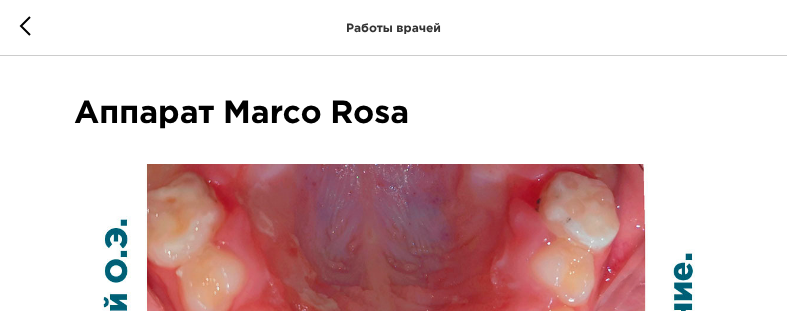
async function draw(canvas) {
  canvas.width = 787;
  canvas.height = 311;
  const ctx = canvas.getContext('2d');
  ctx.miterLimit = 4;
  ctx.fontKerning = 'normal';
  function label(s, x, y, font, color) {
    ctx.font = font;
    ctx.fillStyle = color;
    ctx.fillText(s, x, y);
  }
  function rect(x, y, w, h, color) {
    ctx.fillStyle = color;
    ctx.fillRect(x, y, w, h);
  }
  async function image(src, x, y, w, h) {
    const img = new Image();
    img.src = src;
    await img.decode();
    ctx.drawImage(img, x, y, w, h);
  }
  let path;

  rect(0, 0, 787, 311, '#fff');
  rect(0, 55, 787, 1, '#ccc');
  path = new Path2D('M30 35L21 26L30 17');
  ctx.strokeStyle = '#000';
  ctx.lineWidth = 2;
  ctx.stroke(path);
  label('Работы врачей', 346, 32, 'bold 12px Gotham', '#333');
  ctx.wordSpacing = '-1px';
  label('Аппарат Marco Rosa', 74, 123, 'bold 32px Gotham', '#000');
  await image('assets/img1.png', 102, 164, 593, 147);
}

draw(document.querySelector('canvas'));
